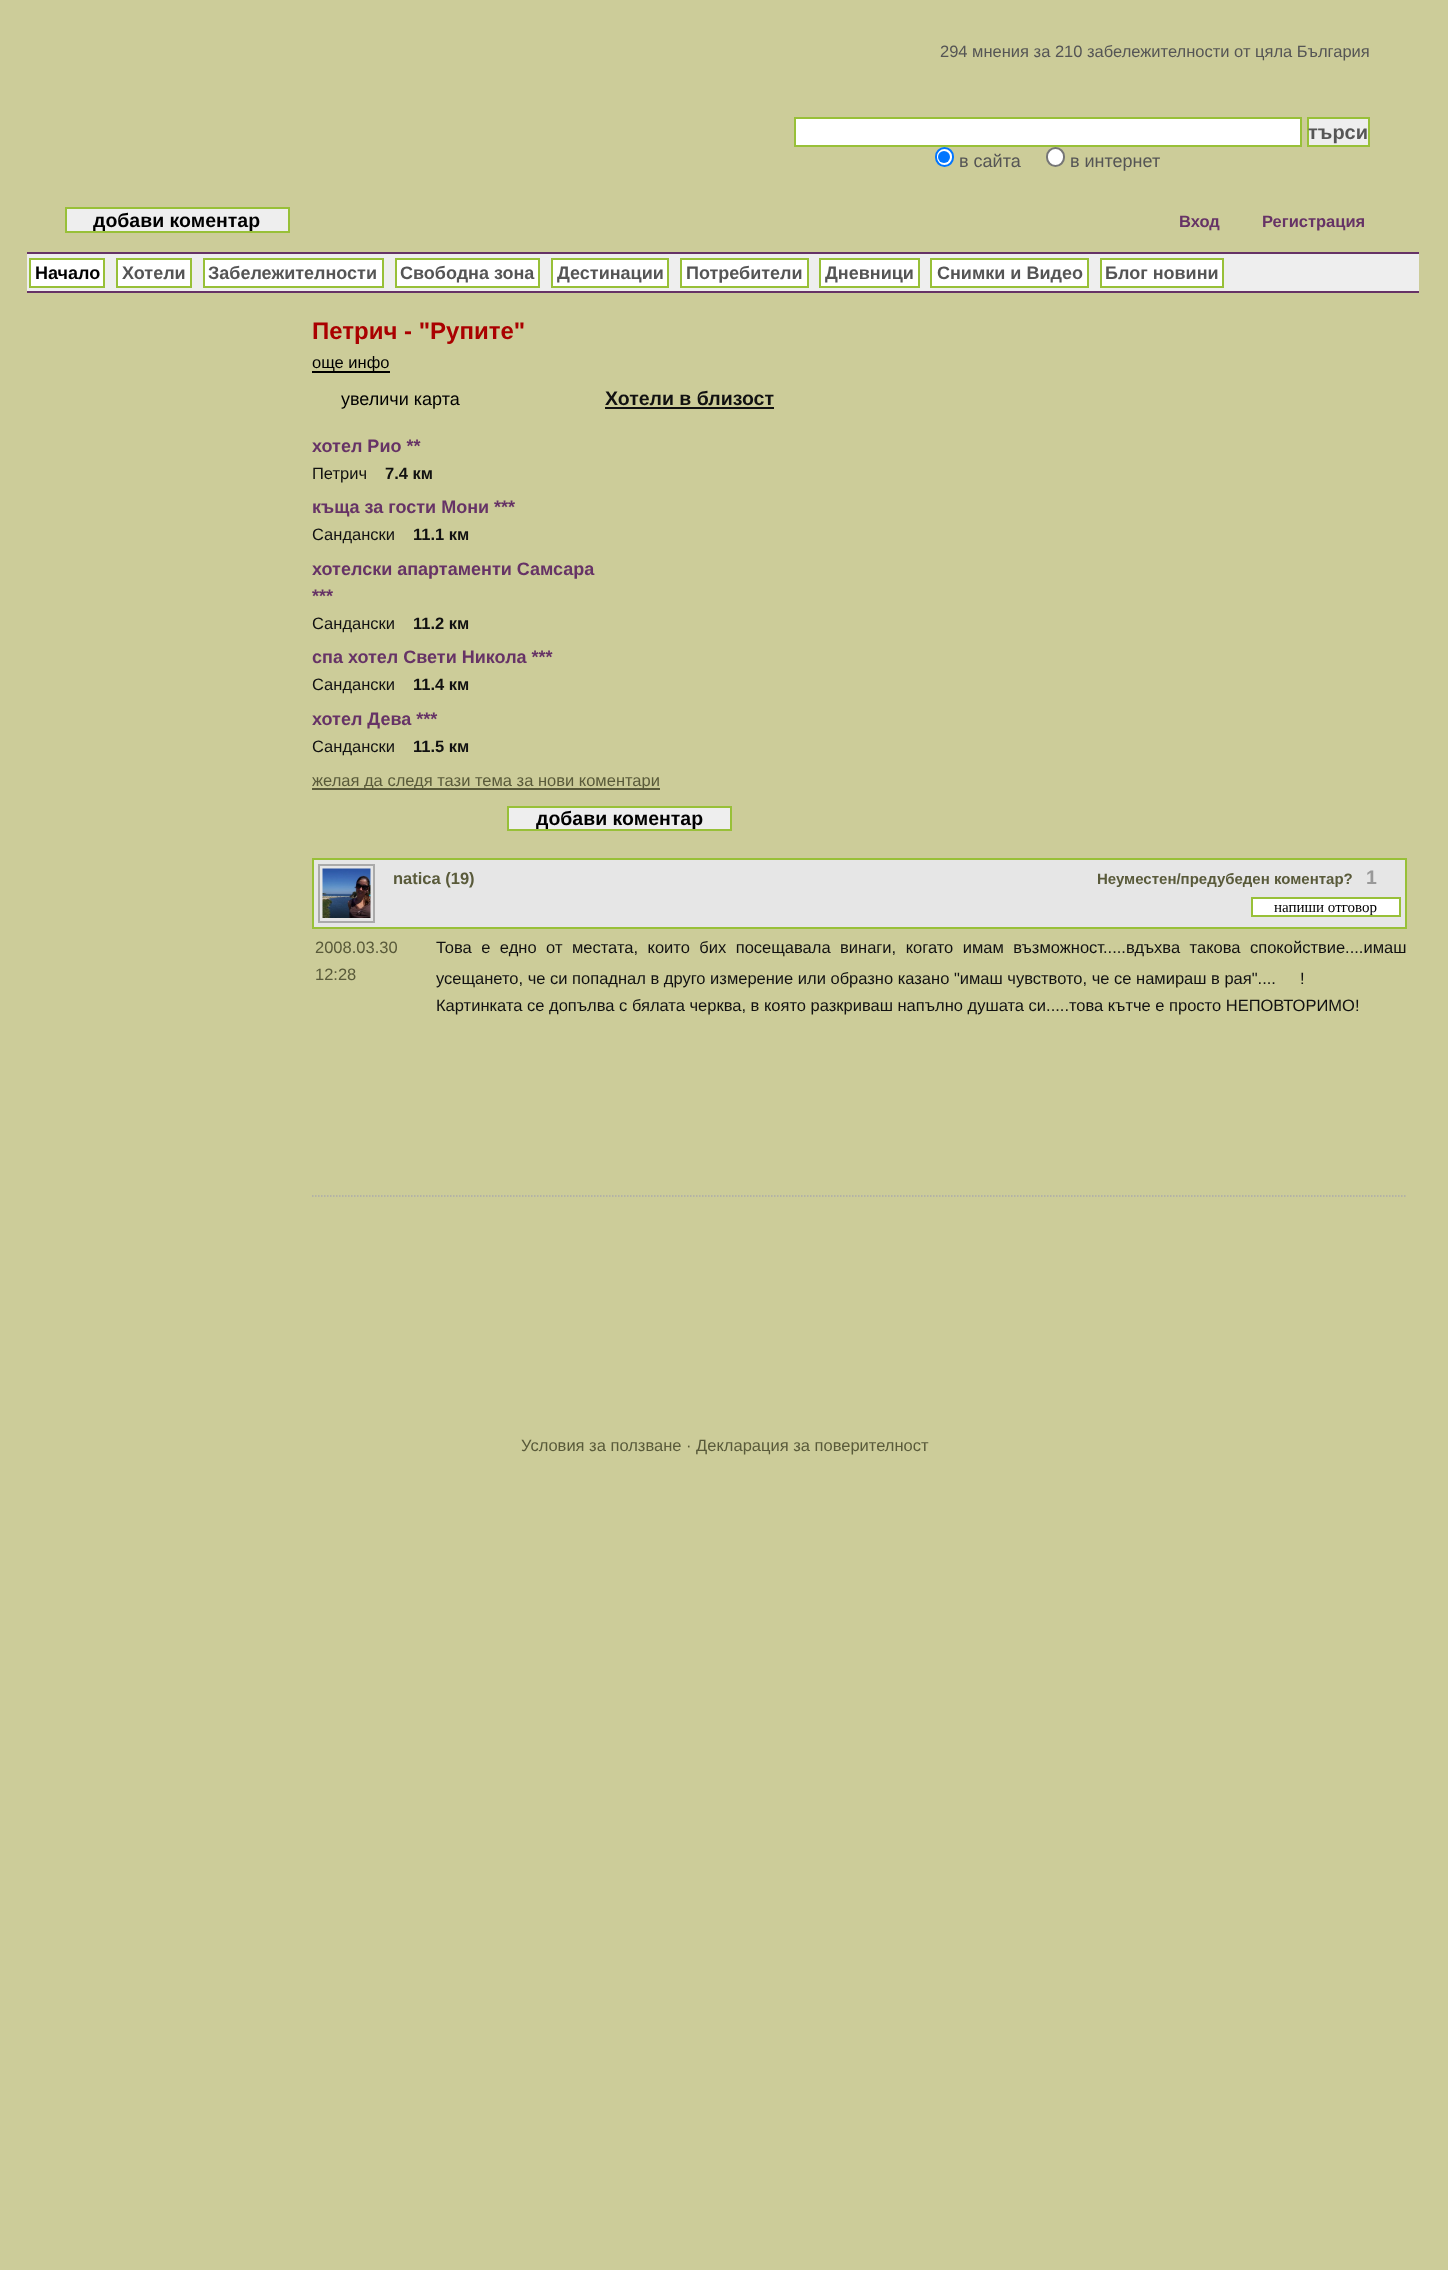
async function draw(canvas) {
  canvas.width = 1448;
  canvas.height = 2270;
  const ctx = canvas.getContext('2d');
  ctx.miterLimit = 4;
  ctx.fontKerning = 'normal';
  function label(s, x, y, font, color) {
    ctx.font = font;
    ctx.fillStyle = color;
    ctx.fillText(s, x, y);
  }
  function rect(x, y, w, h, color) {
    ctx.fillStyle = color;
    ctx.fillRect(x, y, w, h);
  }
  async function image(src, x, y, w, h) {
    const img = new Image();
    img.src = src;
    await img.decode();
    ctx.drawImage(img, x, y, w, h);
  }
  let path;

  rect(0, 0, 1448, 2270, '#cc9');
  label('294 мнения за 210 забележителности от цяла България', 940, 57, '16.5px Liberation Sans', '#555');
  ctx.fillStyle = '#fff';
  ctx.beginPath();
  ctx.rect(795, 118, 506, 28);
  ctx.fill();
  ctx.strokeStyle = '#98c038';
  ctx.lineWidth = 2;
  ctx.stroke();
  ctx.fillStyle = '#eee';
  ctx.beginPath();
  ctx.rect(1308, 118, 61, 28);
  ctx.fill();
  ctx.stroke();
  label('търси', 1308, 139, 'bold 20px Liberation Sans', '#555');
  ctx.fillStyle = '#fff';
  ctx.beginPath();
  ctx.roundRect(936, 148, 17, 18, 8.5);
  ctx.fill();
  ctx.strokeStyle = '#0075ff';
  ctx.stroke();
  ctx.fillStyle = '#0075ff';
  ctx.beginPath();
  ctx.arc(944, 157, 6, 0, 2 * Math.PI);
  ctx.fill();
  label('в сайта', 959, 167, '18px Liberation Sans', '#555');
  ctx.fillStyle = '#fff';
  ctx.beginPath();
  ctx.roundRect(1047, 148, 17, 18, 8.5);
  ctx.fill();
  ctx.strokeStyle = '#767676';
  ctx.stroke();
  label('в интернет', 1070, 167, '18px Liberation Sans', '#555');
  ctx.fillStyle = '#eee';
  ctx.beginPath();
  ctx.rect(66, 208, 223, 24);
  ctx.fill();
  ctx.strokeStyle = '#98c038';
  ctx.stroke();
  label('добави коментар', 93, 227, 'bold 19.5px Liberation Sans', '#000');
  label('Вход', 1179, 227, 'bold 16.5px Liberation Sans', '#636');
  label('Регистрация', 1262, 227, 'bold 16.5px Liberation Sans', '#636');
  rect(27, 254, 1392, 37, '#eee');
  rect(27, 252, 1392, 2, '#636');
  rect(27, 291, 1392, 2, '#636');
  ctx.fillStyle = '#fff';
  ctx.beginPath();
  ctx.rect(30, 259, 74, 28);
  ctx.fill();
  ctx.stroke();
  label('Начало', 35, 279, 'bold 18px Liberation Sans', '#000');
  ctx.fillStyle = '#fff';
  ctx.beginPath();
  ctx.rect(117, 259, 74, 28);
  ctx.fill();
  ctx.stroke();
  label('Хотели', 122, 279, 'bold 18px Liberation Sans', '#555');
  ctx.fillStyle = '#fff';
  ctx.beginPath();
  ctx.rect(204, 259, 179, 28);
  ctx.fill();
  ctx.stroke();
  label('Забележителности', 208, 279, 'bold 18px Liberation Sans', '#555');
  ctx.fillStyle = '#fff';
  ctx.beginPath();
  ctx.rect(396, 259, 143, 28);
  ctx.fill();
  ctx.stroke();
  label('Свободна зона', 400, 279, 'bold 18px Liberation Sans', '#555');
  ctx.fillStyle = '#fff';
  ctx.beginPath();
  ctx.rect(552, 259, 116, 28);
  ctx.fill();
  ctx.stroke();
  label('Дестинации', 557, 279, 'bold 18px Liberation Sans', '#555');
  ctx.fillStyle = '#fff';
  ctx.beginPath();
  ctx.rect(681, 259, 127, 28);
  ctx.fill();
  ctx.stroke();
  label('Потребители', 686, 279, 'bold 18px Liberation Sans', '#555');
  ctx.fillStyle = '#fff';
  ctx.beginPath();
  ctx.rect(820, 259, 99, 28);
  ctx.fill();
  ctx.stroke();
  label('Дневници', 825, 279, 'bold 18px Liberation Sans', '#555');
  ctx.fillStyle = '#fff';
  ctx.beginPath();
  ctx.rect(931, 259, 157, 28);
  ctx.fill();
  ctx.stroke();
  label('Снимки и Видео', 937, 279, 'bold 18px Liberation Sans', '#555');
  ctx.fillStyle = '#fff';
  ctx.beginPath();
  ctx.rect(1101, 259, 122, 28);
  ctx.fill();
  ctx.stroke();
  label('Блог новини', 1105, 279, 'bold 18px Liberation Sans', '#555');
  label('Петрич - "Рупите"', 312, 339, 'bold 24px Liberation Sans', '#a00');
  rect(312, 371, 78, 2, '#000');
  label('още инфо', 312, 368, '16.5px Liberation Sans', '#000');
  label('увеличи карта', 341, 405, '18px Liberation Sans', '#000');
  label('Хотели в близост', 605, 405, 'bold 19.5px Liberation Sans', '#111');
  rect(605, 407, 169, 2, '#111');
  label('хотел Рио **', 312, 452, 'bold 18px Liberation Sans', '#636');
  label('Петрич', 312, 479, '16.5px Liberation Sans', '#111');
  label('7.4 км', 385, 479, 'bold 16.5px Liberation Sans', '#111');
  label('къща за гости Мони ***', 312, 513, 'bold 18px Liberation Sans', '#636');
  label('Сандански', 312, 540, '16.5px Liberation Sans', '#111');
  label('11.1 км', 413, 540, 'bold 16.5px Liberation Sans', '#111');
  label('хотелски апартаменти Самсара', 312, 575, 'bold 18px Liberation Sans', '#636');
  label('***', 312, 602, 'bold 18px Liberation Sans', '#636');
  label('Сандански', 312, 629, '16.5px Liberation Sans', '#111');
  label('11.2 км', 413, 629, 'bold 16.5px Liberation Sans', '#111');
  label('спа хотел Свети Никола ***', 312, 663, 'bold 18px Liberation Sans', '#636');
  label('Сандански', 312, 690, '16.5px Liberation Sans', '#111');
  label('11.4 км', 413, 690, 'bold 16.5px Liberation Sans', '#111');
  label('хотел Дева ***', 312, 725, 'bold 18px Liberation Sans', '#636');
  label('Сандански', 312, 752, '16.5px Liberation Sans', '#111');
  label('11.5 км', 413, 752, 'bold 16.5px Liberation Sans', '#111');
  rect(312, 788, 348, 2, '#595a3a');
  label('желая да следя тази тема за нови коментари', 312, 786, '16.5px Liberation Sans', '#595a3a');
  ctx.fillStyle = '#eee';
  ctx.beginPath();
  ctx.rect(508, 807, 223, 23);
  ctx.fill();
  ctx.stroke();
  label('добави коментар', 536, 825, 'bold 19.5px Liberation Sans', '#000');
  path = new Path2D('M312 1196H1407');
  ctx.strokeStyle = '#aaa';
  ctx.lineWidth = 1.5;
  ctx.setLineDash([1.5, 1.5]);
  ctx.stroke(path);
  ctx.fillStyle = '#e6e6e6';
  ctx.beginPath();
  ctx.rect(313, 859, 1093, 69);
  ctx.fill();
  ctx.strokeStyle = '#98c038';
  ctx.lineWidth = 2;
  ctx.setLineDash([]);
  ctx.stroke();
  ctx.strokeStyle = '#aaa';
  ctx.strokeRect(319, 865, 55, 57);
  await image('assets/img1.png', 322, 868, 49, 50);
  label('natica (19)', 393, 884, 'bold 16.5px Liberation Sans', '#595a3a');
  label('Неуместен/предубеден коментар?', 1097, 884, 'bold 15px Liberation Sans', '#595a3a');
  label('1', 1366, 884, 'bold 19.5px Liberation Sans', '#999');
  ctx.fillStyle = '#fff';
  ctx.beginPath();
  ctx.rect(1252, 898, 148, 18);
  ctx.fill();
  ctx.strokeStyle = '#98c038';
  ctx.stroke();
  ctx.save();
  ctx.beginPath();
  ctx.rect(1253, 899, 147, 16);
  ctx.clip();
  label('напиши отговор', 1274, 912, '15px Liberation Serif', '#000');
  ctx.restore();
  label('2008.03.30', 315, 953, '16.5px Liberation Sans', '#595a3a');
  label('12:28', 315, 980, '16.5px Liberation Sans', '#595a3a');
  ctx.wordSpacing = '4.9px';
  label('Това е едно от местата, които бих посещавала винаги, когато имам възможност.....вдъхва такова спокойствие....имаш', 436, 953, '16.5px Liberation Sans', '#111');
  ctx.wordSpacing = '0px';
  label('усещането, че си попаднал в друго измерение или образно казано "имаш чувството, че се намираш в рая"....', 436, 984, '16.5px Liberation Sans', '#111');
  label('!', 1300, 984, '16.5px Liberation Sans', '#111');
  label('Картинката се допълва с бялата черква, в която разкриваш напълно душата си.....това кътче е просто НЕПОВТОРИМО!', 436, 1011, '16.5px Liberation Sans', '#111');
  label('Условия за ползване · Декларация за поверителност', 521, 1451, '16.5px Liberation Sans', '#595a3a');
}

draw(document.querySelector('canvas'));
